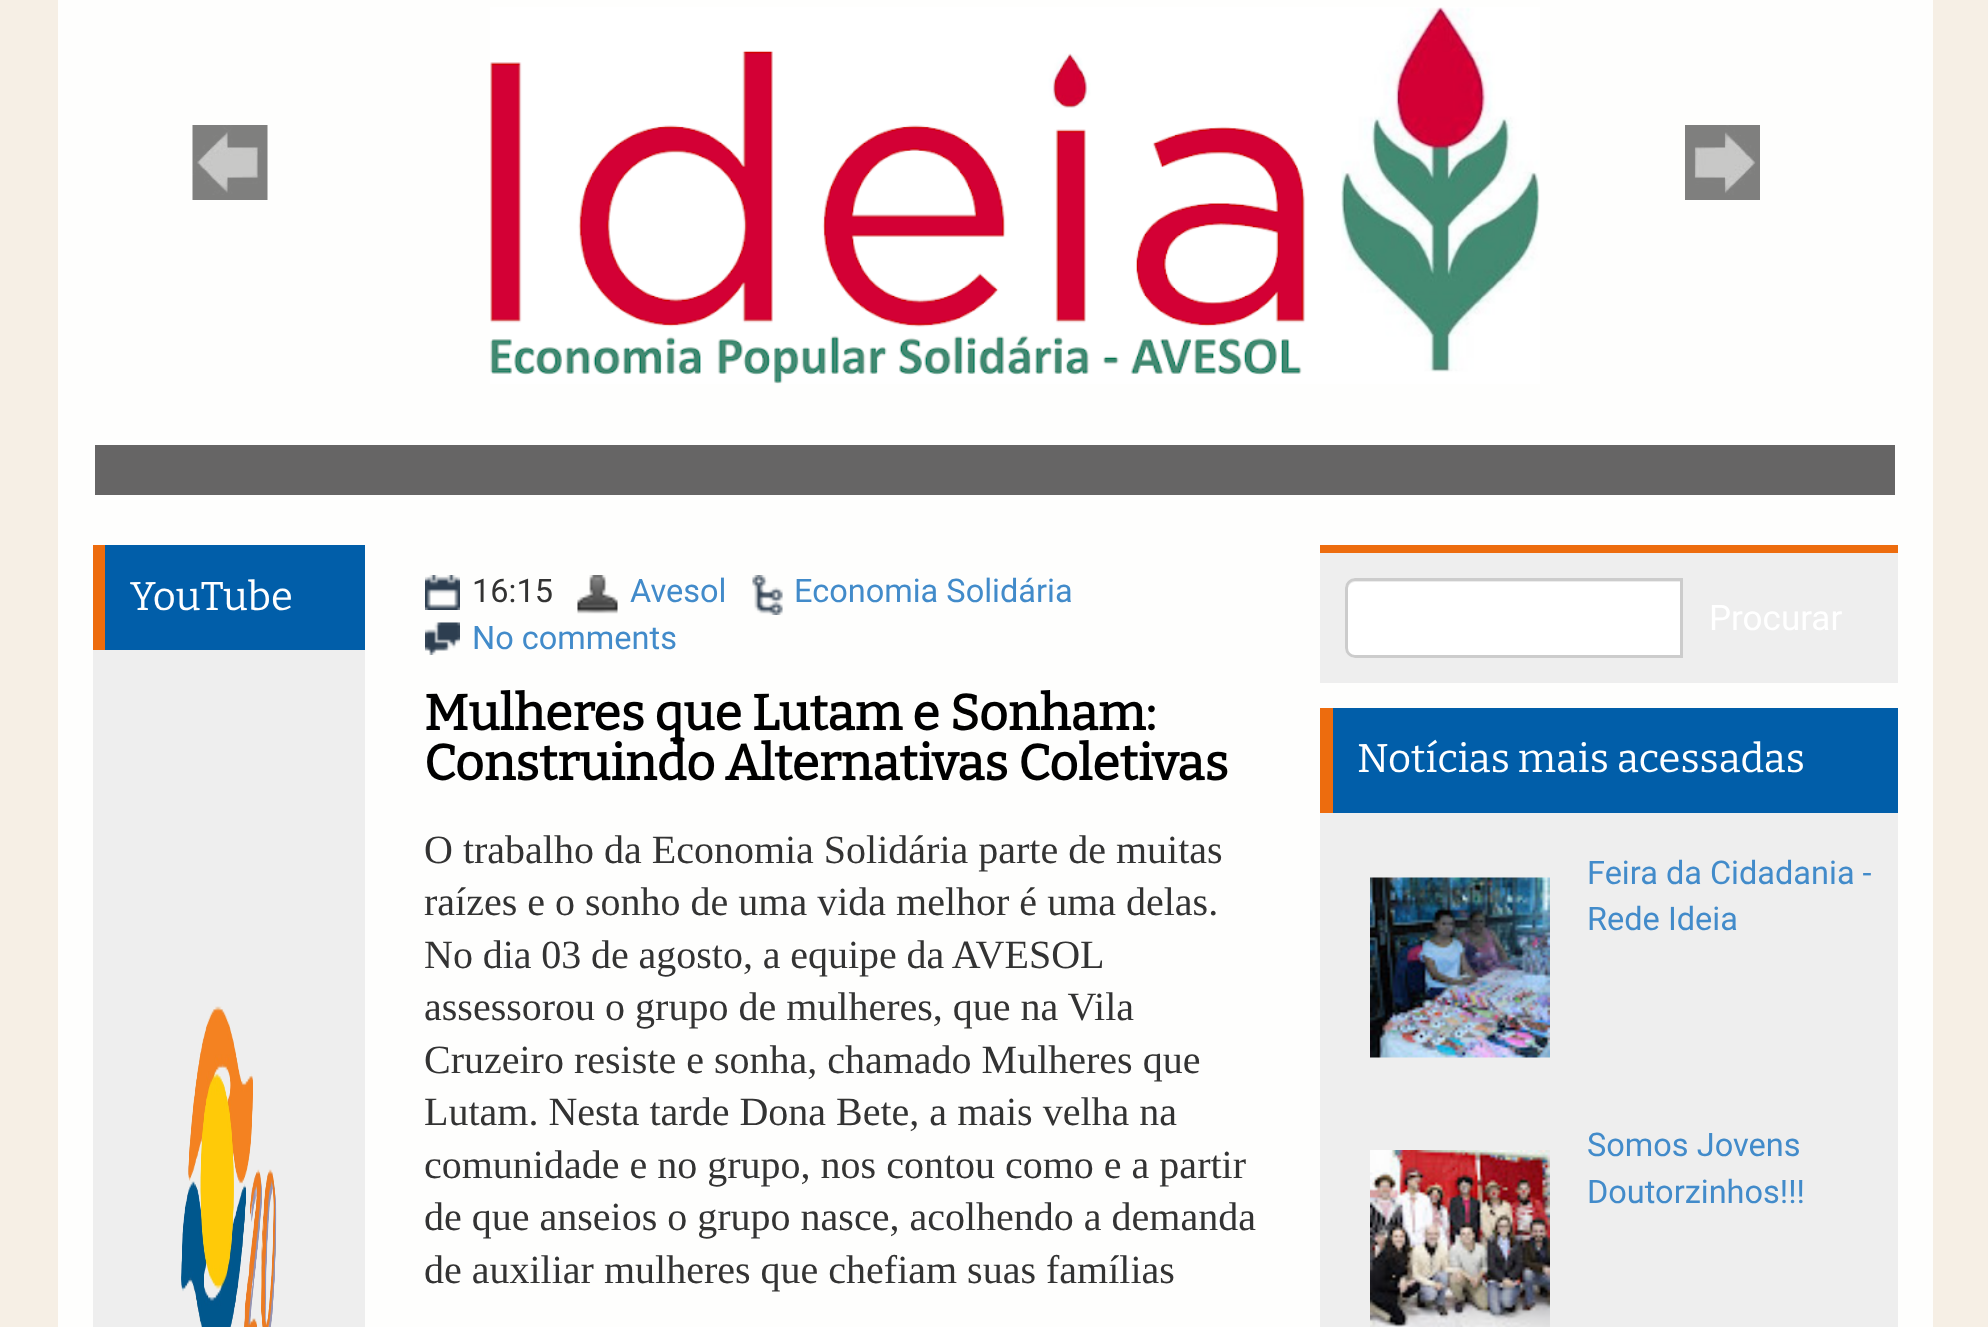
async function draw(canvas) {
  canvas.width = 1988;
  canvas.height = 1327;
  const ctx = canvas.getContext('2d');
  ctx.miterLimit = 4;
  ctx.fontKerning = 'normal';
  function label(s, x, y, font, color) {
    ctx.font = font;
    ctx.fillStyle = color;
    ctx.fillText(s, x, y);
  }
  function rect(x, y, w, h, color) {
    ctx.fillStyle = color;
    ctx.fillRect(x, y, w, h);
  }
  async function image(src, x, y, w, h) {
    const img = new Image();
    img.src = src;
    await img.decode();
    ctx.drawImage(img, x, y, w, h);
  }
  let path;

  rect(0, 0, 1988, 1327, '#f6efe5');
  rect(58, 0, 1875, 1327, '#ffffffe6');
  await image('assets/img1.png', 490, 7, 1050, 377);
  rect(95, 445, 1800, 50, '#666565');
  await image('assets/img2.png', 192, 125, 76, 75);
  await image('assets/img3.png', 1685, 125, 75, 75);
  rect(105, 545, 260, 105, '#015ea9');
  rect(93, 545, 12, 105, '#ed6c0e');
  label('YouTube', 130, 610, '100 40px Bitter', '#fff');
  rect(93, 650, 272, 677, '#eee');
  await image('assets/img4.png', 181, 1006, 96, 321);
  await image('assets/img5.png', 425, 575, 35, 35);
  label('16:15', 472, 602, '32.5px Roboto', '#333');
  await image('assets/img6.png', 577, 575, 41, 39);
  label('Avesol', 630, 602, '32.5px Roboto', '#428bca');
  await image('assets/img7.png', 752, 575, 31, 40);
  label('Economia Solidária', 794, 602, '32.5px Roboto', '#428bca');
  await image('assets/img8.png', 425, 622, 35, 33);
  label('No comments', 472, 649, '32.5px Roboto', '#428bca');
  label('Mulheres que Lutam e Sonham:', 424, 730, 'bold 50px Bitter', '#000');
  label('Construindo Alternativas Coletivas', 424, 780, 'bold 50px Bitter', '#000');
  label('O trabalho da Economia Solidária parte de muitas', 424, 863, '40px Liberation Serif', '#333');
  label('raízes e o sonho de uma vida melhor é uma delas.', 424, 915, '40px Liberation Serif', '#333');
  ctx.wordSpacing = '-0.25px';
  label('No dia 03 de agosto, a equipe da AVESOL', 424, 968, '40px Liberation Serif', '#333');
  ctx.wordSpacing = '0px';
  label('assessorou o grupo de mulheres, que na Vila', 424, 1020, '40px Liberation Serif', '#333');
  label('Cruzeiro resiste e sonha, chamado Mulheres que', 424, 1073, '40px Liberation Serif', '#333');
  label('Lutam. Nesta tarde Dona Bete, a mais velha na', 424, 1125, '40px Liberation Serif', '#333');
  label('comunidade e no grupo, nos contou como e a partir', 424, 1178, '40px Liberation Serif', '#333');
  label('de que anseios o grupo nasce, acolhendo a demanda', 424, 1230, '40px Liberation Serif', '#333');
  label('de auxiliar mulheres que chefiam suas famílias', 424, 1283, '40px Liberation Serif', '#333');
  rect(1320, 545, 578, 8, '#ed6c0e');
  rect(1320, 553, 578, 130, '#eee');
  ctx.fillStyle = '#fff';
  ctx.beginPath();
  ctx.roundRect(1345, 578, 338, 80, [10, 0, 0, 10]);
  ctx.fill();
  ctx.fillStyle = '#ececec';
  path = new Path2D('M1355 582H1680V580H1356C1350 580 1348 585 1348 590C1348 586 1351 582 1355 582Z');
  ctx.fill(path);
  ctx.beginPath();
  ctx.roundRect(1346.5, 579.5, 335, 77, [8.5, 0, 0, 8.5]);
  ctx.strokeStyle = '#ccc';
  ctx.lineWidth = 3;
  ctx.stroke();
  label('Procurar', 1709, 630, '35px Roboto', '#fff');
  rect(1333, 708, 565, 105, '#015ea9');
  rect(1320, 708, 13, 105, '#ed6c0e');
  label('Notícias mais acessadas', 1357, 772, '100 40px Bitter', '#fff');
  rect(1320, 813, 578, 514, '#eee');
  await image('assets/img9.png', 1370, 877, 180, 181);
  label('Feira da Cidadania -', 1587, 884, '32.5px Roboto', '#428bca');
  label('Rede Ideia', 1587, 930, '32.5px Roboto', '#428bca');
  await image('assets/img10.png', 1370, 1150, 180, 177);
  label('Somos Jovens', 1587, 1156, '32.5px Roboto', '#428bca');
  label('Doutorzinhos!!!', 1587, 1203, '32.5px Roboto', '#428bca');
}

draw(document.querySelector('canvas'));
